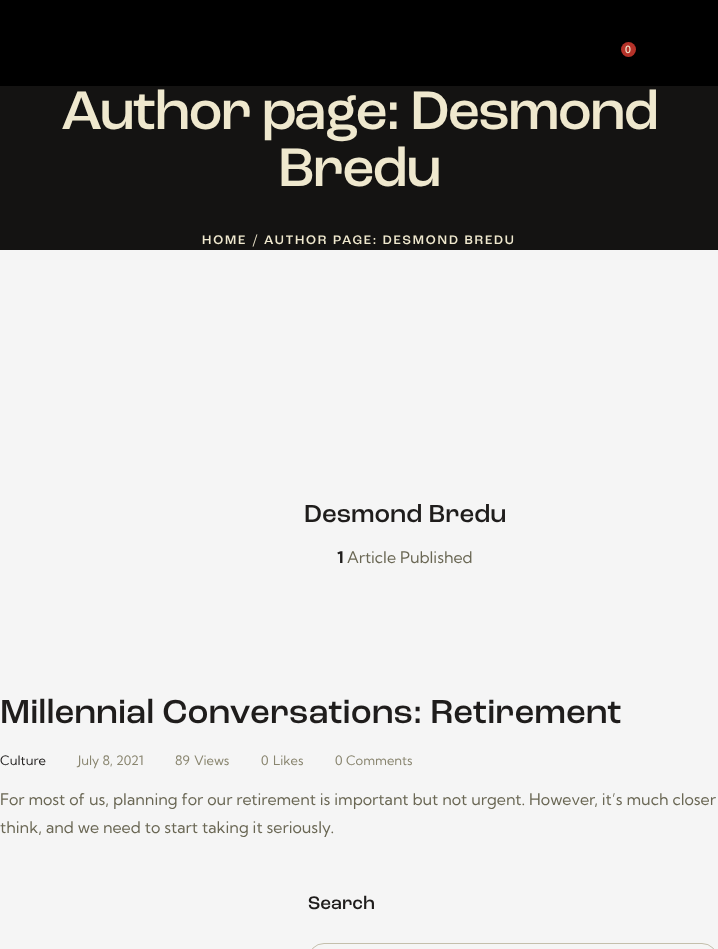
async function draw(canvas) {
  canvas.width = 718;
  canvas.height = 949;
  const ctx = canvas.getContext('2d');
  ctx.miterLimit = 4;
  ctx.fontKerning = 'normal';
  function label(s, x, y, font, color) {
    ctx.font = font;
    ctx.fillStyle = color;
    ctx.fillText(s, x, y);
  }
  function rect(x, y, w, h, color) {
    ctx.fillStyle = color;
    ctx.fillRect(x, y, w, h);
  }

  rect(0, 0, 718, 949, '#f5f5f5');
  rect(0, 86, 718, 164, '#141312');
  rect(0, 0, 718, 86, '#000');
  ctx.fillStyle = '#b53229';
  ctx.beginPath();
  ctx.arc(628.5, 49.5, 7.5, 0, 2 * Math.PI);
  ctx.fill();
  label('0', 625, 53, '500 10px Kumbh Sans', '#efe8ce');
  ctx.letterSpacing = '-1.8px';
  label('Author page: Desmond', 61, 129, '500 57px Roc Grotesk', '#efe8ce');
  label('Bredu', 278, 186, '500 57px Roc Grotesk', '#efe8ce');
  ctx.letterSpacing = '1.8px';
  label('HOME', 202, 244, '500 13px Roc Grotesk', '#efe8ce');
  label('/', 253, 244, '500 13px Roc Grotesk', '#efe8ce');
  label('AUTHOR PAGE: DESMOND BREDU', 264, 244, '500 13px Roc Grotesk', '#efe8ce');
  ctx.letterSpacing = '0px';
  label('Desmond Bredu', 304, 522, '500 26px Roc Grotesk', '#1f1d1c');
  label('1', 337, 563, 'bold 16px Kumbh Sans', '#1f1d1c');
  label('Article Published', 347, 563, '16px Kumbh Sans', '#6a6754');
  label('Millennial Conversations: Retirement', 0, 723, '500 35px Roc Grotesk', '#1f1d1c');
  label('Culture', 0, 765, '13px Kumbh Sans', '#1f1d1c');
  label('July 8, 2021', 78, 765, '13px Kumbh Sans', '#89856f');
  label('89', 175, 765, '13px Kumbh Sans', '#89856f');
  label('Views', 194, 765, '13px Kumbh Sans', '#89856f');
  label('0', 261, 765, '13px Kumbh Sans', '#89856f');
  label('Likes', 273, 765, '13px Kumbh Sans', '#89856f');
  label('0', 335, 765, '13px Kumbh Sans', '#89856f');
  label('Comments', 346, 765, '13px Kumbh Sans', '#89856f');
  label('For most of us, planning for our retirement is important but not urgent. However, it’s much closer', 0, 805, '16px Kumbh Sans', '#6a6754');
  label('think, and we need to start taking it seriously.', 0, 833, '16px Kumbh Sans', '#6a6754');
  label('Search', 308, 909, '500 19px Roc Grotesk', '#1f1d1c');
  ctx.beginPath();
  ctx.roundRect(308.5, 943.5, 409, 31, 24.5);
  ctx.strokeStyle = '#c4bfac';
  ctx.stroke();
}

draw(document.querySelector('canvas'));
